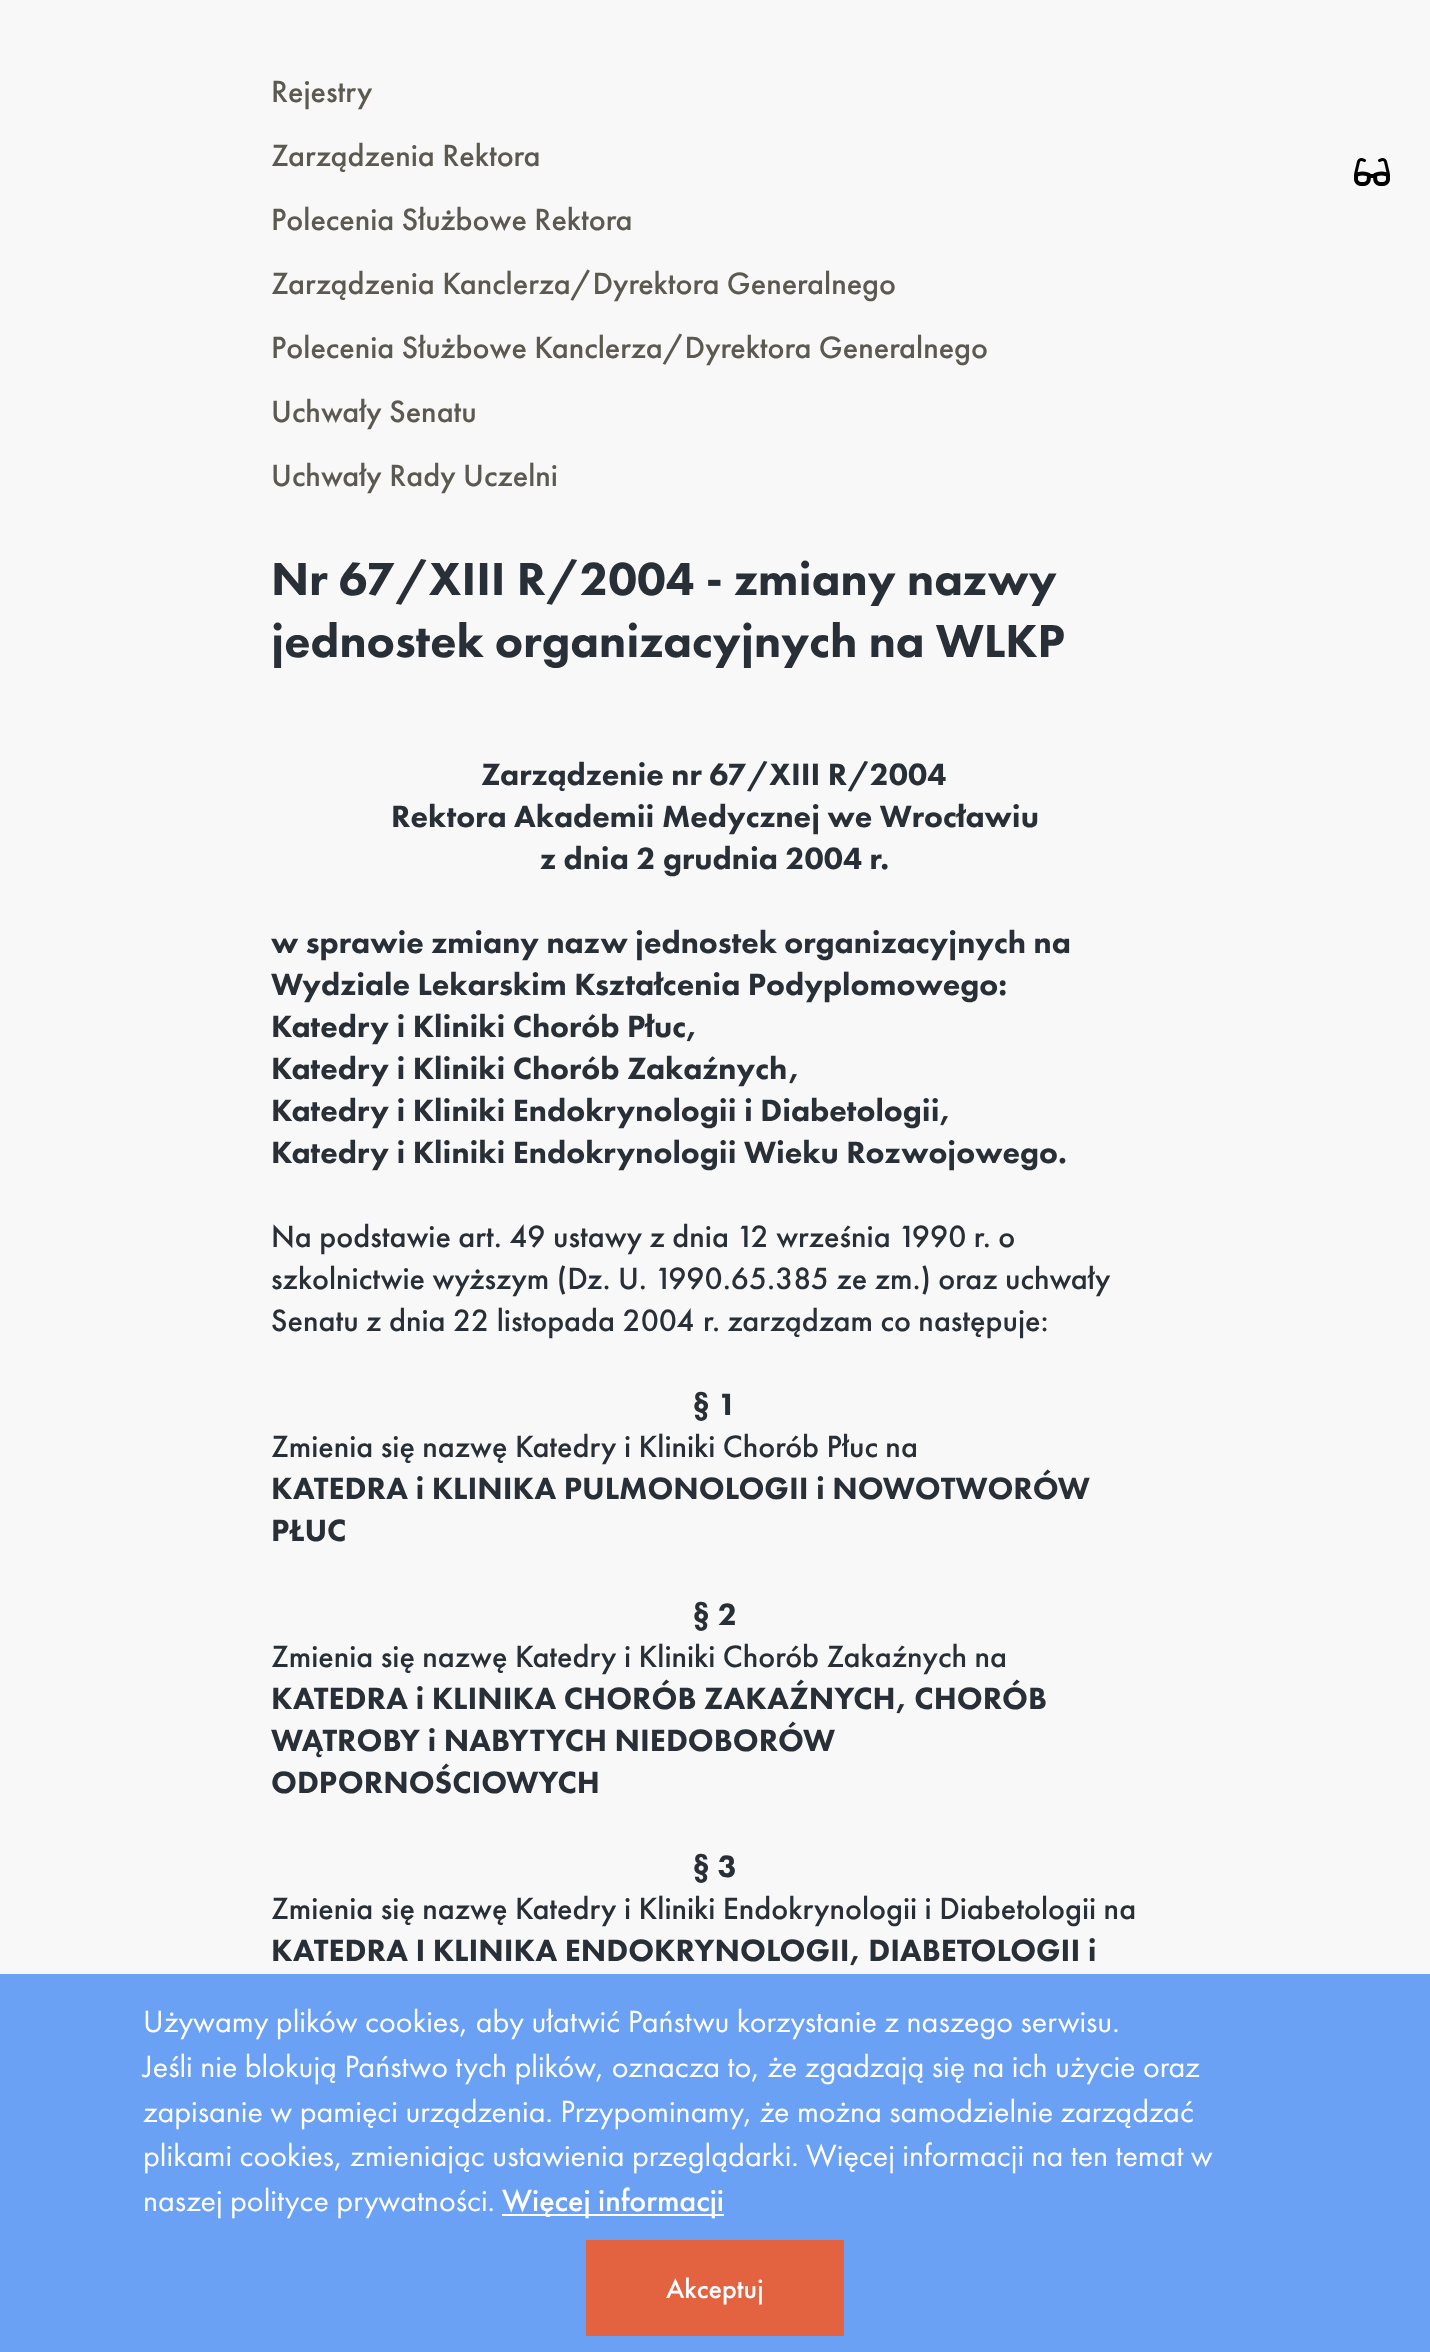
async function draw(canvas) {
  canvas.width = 1430;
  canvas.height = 2352;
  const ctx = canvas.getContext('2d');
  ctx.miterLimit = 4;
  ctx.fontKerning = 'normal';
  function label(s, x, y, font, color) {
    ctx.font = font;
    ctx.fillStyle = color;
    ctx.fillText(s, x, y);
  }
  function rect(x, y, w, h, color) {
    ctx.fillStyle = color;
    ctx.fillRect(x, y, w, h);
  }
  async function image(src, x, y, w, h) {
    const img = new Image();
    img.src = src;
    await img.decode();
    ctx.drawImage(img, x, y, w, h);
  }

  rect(0, 0, 1430, 2352, '#f8f8f8');
  label('Rejestry', 271, 102, '500 32px Futura PT', '#5c5950');
  label('Zarządzenia Rektora', 271, 166, '500 32px Futura PT', '#5c5950');
  label('Polecenia Służbowe Rektora', 271, 230, '500 32px Futura PT', '#5c5950');
  label('Zarządzenia Kanclerza/Dyrektora Generalnego', 271, 294, '500 32px Futura PT', '#5c5950');
  label('Polecenia Służbowe Kanclerza/Dyrektora Generalnego', 271, 358, '500 32px Futura PT', '#5c5950');
  label('Uchwały Senatu', 271, 422, '500 32px Futura PT', '#5c5950');
  label('Uchwały Rady Uczelni', 271, 486, '500 32px Futura PT', '#5c5950');
  label('Nr 67/XIII R/2004 - zmiany nazwy', 271, 595, '900 48px Futura PT', '#292f36');
  label('jednostek organizacyjnych na WLKP', 271, 657, '900 48px Futura PT', '#292f36');
  label('Zarządzenie nr 67/XIII R/2004', 481, 785, '900 32px Futura PT', '#292f36');
  label('Rektora Akademii Medycznej we Wrocławiu', 391, 827, '900 32px Futura PT', '#292f36');
  label('z dnia 2 grudnia 2004 r.', 540, 869, '900 32px Futura PT', '#292f36');
  label('w sprawie zmiany nazw jednostek organizacyjnych na', 271, 953, '900 32px Futura PT', '#292f36');
  label('Wydziale Lekarskim Kształcenia Podyplomowego:', 271, 995, '900 32px Futura PT', '#292f36');
  label('Katedry i Kliniki Chorób Płuc,', 271, 1037, '900 32px Futura PT', '#292f36');
  label('Katedry i Kliniki Chorób Zakaźnych,', 271, 1079, '900 32px Futura PT', '#292f36');
  label('Katedry i Kliniki Endokrynologii i Diabetologii,', 271, 1121, '900 32px Futura PT', '#292f36');
  label('Katedry i Kliniki Endokrynologii Wieku Rozwojowego.', 271, 1163, '900 32px Futura PT', '#292f36');
  label('Na podstawie art. 49 ustawy z dnia 12 września 1990 r. o', 271, 1247, '500 32px Futura PT', '#292f36');
  label('szkolnictwie wyższym (Dz. U. 1990.65.385 ze zm.) oraz uchwały', 271, 1289, '500 32px Futura PT', '#292f36');
  label('Senatu z dnia 22 listopada 2004', 271, 1331, '500 32px Futura PT', '#292f36');
  label('r. zarządzam co następuje:', 703, 1331, '500 32px Futura PT', '#292f36');
  label('§ 1', 692, 1415, '900 32px Futura PT', '#292f36');
  label('Zmienia się nazwę Katedry i Kliniki Chorób Płuc na', 271, 1457, '500 32px Futura PT', '#292f36');
  label('KATEDRA i KLINIKA PULMONOLOGII i NOWOTWORÓW', 271, 1499, '900 32px Futura PT', '#292f36');
  label('PŁUC', 271, 1541, '900 32px Futura PT', '#292f36');
  label('§ 2', 692, 1625, '900 32px Futura PT', '#292f36');
  label('Zmienia się nazwę Katedry i Kliniki Chorób Zakaźnych na', 271, 1667, '500 32px Futura PT', '#292f36');
  label('KATEDRA i KLINIKA CHORÓB ZAKAŹNYCH, CHORÓB', 271, 1709, '900 32px Futura PT', '#292f36');
  label('WĄTROBY i NABYTYCH NIEDOBORÓW', 271, 1751, '900 32px Futura PT', '#292f36');
  label('ODPORNOŚCIOWYCH', 271, 1793, '900 32px Futura PT', '#292f36');
  label('§ 3', 692, 1877, '900 32px Futura PT', '#292f36');
  label('Zmienia się nazwę Katedry i Kliniki Endokrynologii i Diabetologii na', 271, 1919, '500 32px Futura PT', '#292f36');
  label('KATEDRA I KLINIKA ENDOKRYNOLOGII, DIABETOLOGII i', 271, 1961, '900 32px Futura PT', '#292f36');
  await image('assets/img1.png', 1354, 158, 36, 28);
  rect(0, 1974, 1430, 378, '#6aa1f5');
  label('Używamy plików cookies, aby ułatwić Państwu korzystanie z naszego serwisu.', 143, 2032, '32px Futura PT', '#fff');
  label('Jeśli nie blokują Państwo tych plików, oznacza to, że zgadzają się na ich użycie oraz', 143, 2077, '32px Futura PT', '#fff');
  label('zapisanie w pamięci urządzenia. Przypominamy, że można samodzielnie zarządzać', 143, 2122, '32px Futura PT', '#fff');
  label('plikami cookies, zmieniając ustawienia przeglądarki. Więcej informacji na ten temat w', 143, 2166, '32px Futura PT', '#fff');
  label('naszej polityce prywatności.', 143, 2211, '32px Futura PT', '#fff');
  rect(502, 2214, 222, 2, '#fff');
  label('Więcej informacji', 502, 2211, '500 32px Futura PT', '#fff');
  rect(586, 2240, 258, 96, '#e36341');
  label('Akceptuj', 666, 2298, '500 28px Futura PT', '#fff');
}

draw(document.querySelector('canvas'));
